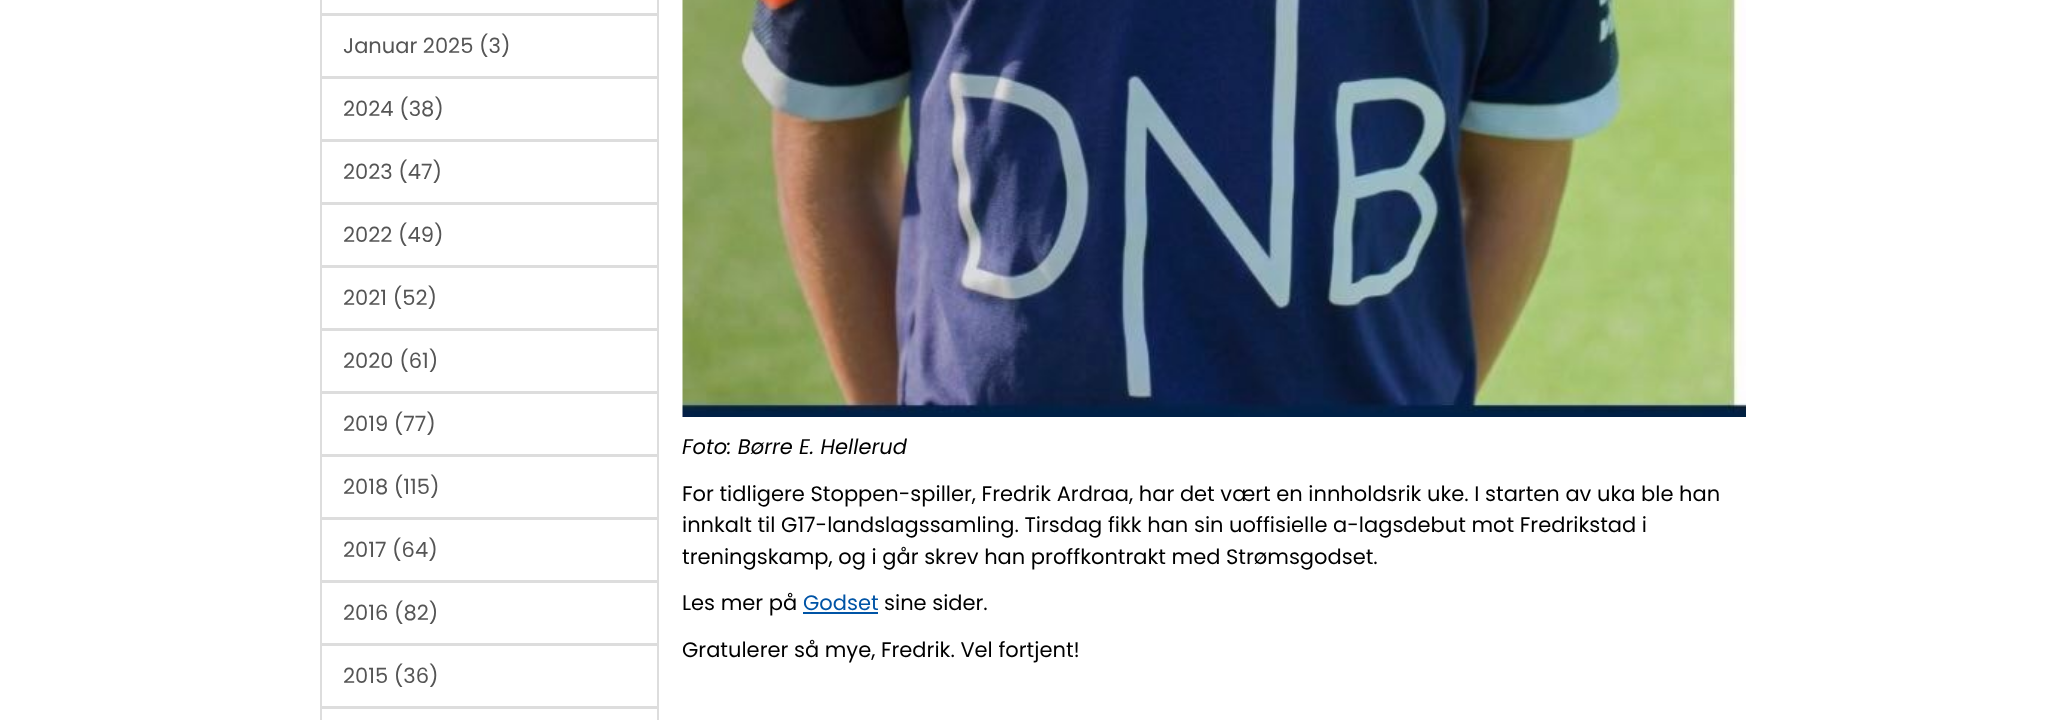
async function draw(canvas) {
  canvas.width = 2065;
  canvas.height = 720;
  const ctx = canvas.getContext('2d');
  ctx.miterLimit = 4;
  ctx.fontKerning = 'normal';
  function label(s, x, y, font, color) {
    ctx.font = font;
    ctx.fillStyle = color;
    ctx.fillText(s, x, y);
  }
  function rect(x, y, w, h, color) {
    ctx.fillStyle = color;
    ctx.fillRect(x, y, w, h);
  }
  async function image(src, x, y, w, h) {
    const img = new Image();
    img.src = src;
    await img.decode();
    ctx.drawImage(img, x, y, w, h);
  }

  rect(0, 0, 2065, 720, '#fff');
  ctx.strokeStyle = '#ddd';
  ctx.lineWidth = 2;
  ctx.strokeRect(321, -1, 337, 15);
  ctx.strokeRect(321, 15, 337, 62);
  label('Januar 2025 (3)', 343, 53, '21px Poppins', '#555');
  ctx.strokeRect(321, 78, 337, 62);
  label('2024 (38)', 343, 116, '21px Poppins', '#555');
  ctx.strokeRect(321, 141, 337, 62);
  label('2023 (47)', 343, 179, '21px Poppins', '#555');
  ctx.strokeRect(321, 204, 337, 62);
  label('2022 (49)', 343, 242, '21px Poppins', '#555');
  ctx.strokeRect(321, 267, 337, 62);
  label('2021 (52)', 343, 305, '21px Poppins', '#555');
  ctx.strokeRect(321, 330, 337, 62);
  label('2020 (61)', 343, 368, '21px Poppins', '#555');
  ctx.strokeRect(321, 393, 337, 62);
  label('2019 (77)', 343, 431, '21px Poppins', '#555');
  ctx.strokeRect(321, 456, 337, 62);
  label('2018 (115)', 343, 494, '21px Poppins', '#555');
  ctx.strokeRect(321, 519, 337, 62);
  label('2017 (64)', 343, 557, '21px Poppins', '#555');
  ctx.strokeRect(321, 582, 337, 62);
  label('2016 (82)', 343, 620, '21px Poppins', '#555');
  ctx.strokeRect(321, 645, 337, 62);
  label('2015 (36)', 343, 683, '21px Poppins', '#555');
  ctx.strokeRect(321, 708, 337, 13);
  await image('assets/img1.png', 682, 0, 1064, 417);
  label('Foto: Børre E. Hellerud', 682, 454, 'italic 21px Poppins', '#000');
  label('For tidligere Stoppen-spiller, Fredrik Ardraa, har det vært en innholdsrik uke. I starten av uka ble han', 682, 501, '21px Poppins', '#000');
  label('innkalt til G17-landslagssamling. Tirsdag fikk han sin uoffisielle a-lagsdebut mot Fredrikstad i', 682, 532, '21px Poppins', '#000');
  label('treningskamp, og i går skrev han proffkontrakt med Strømsgodset.', 682, 564, '21px Poppins', '#000');
  label('Les mer på', 682, 610, '21px Poppins', '#000');
  label('Godset', 803, 610, '21px Poppins', '#0054a6');
  rect(803, 612, 75, 2, '#0054a6');
  label('sine sider.', 884, 610, '21px Poppins', '#000');
  label('Gratulerer så mye, Fredrik. Vel fortjent!', 682, 657, '21px Poppins', '#000');
}

draw(document.querySelector('canvas'));
